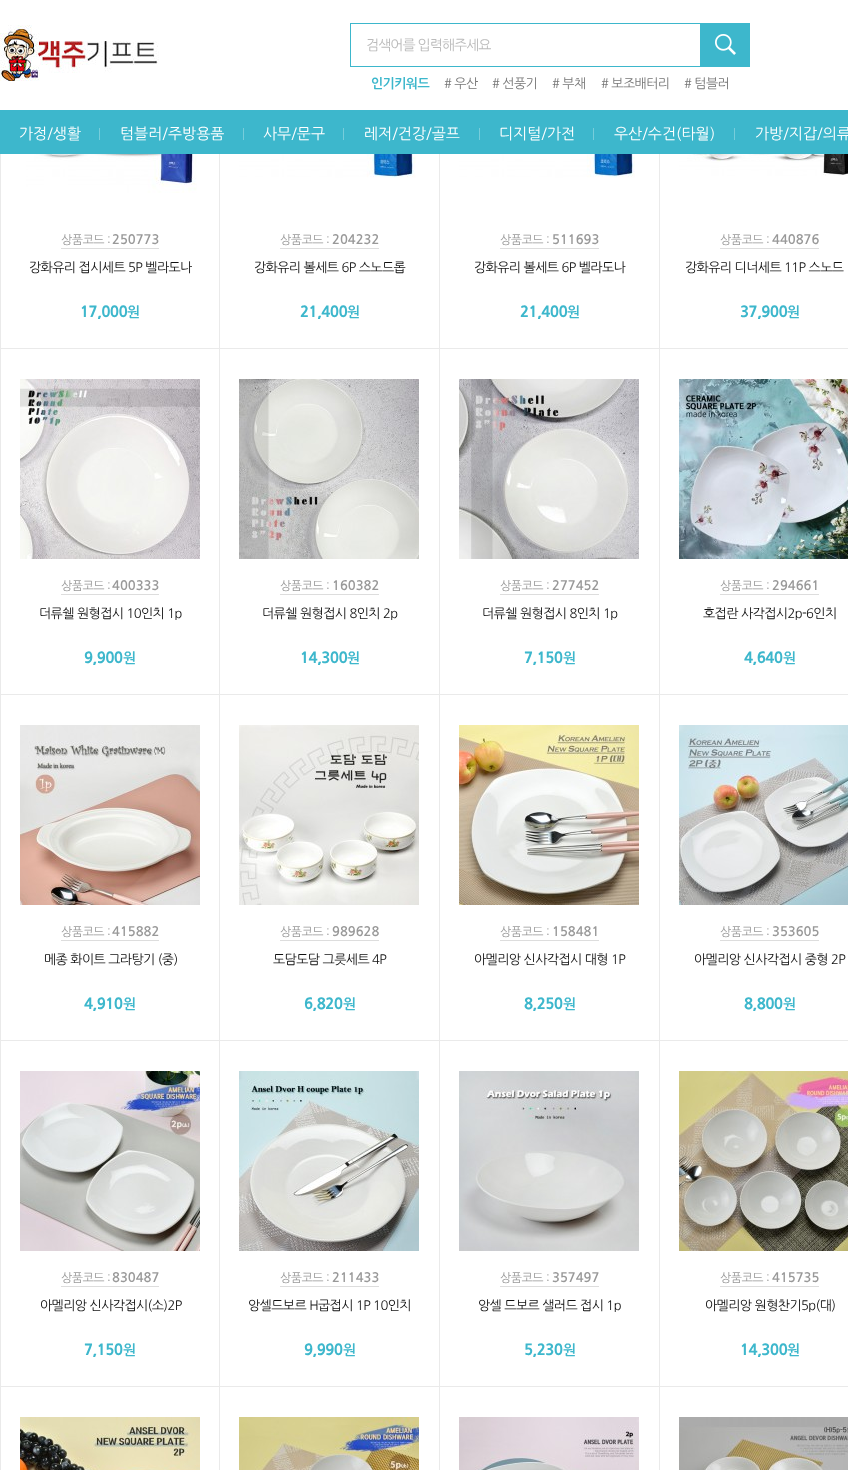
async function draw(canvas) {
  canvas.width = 848;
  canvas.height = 1470;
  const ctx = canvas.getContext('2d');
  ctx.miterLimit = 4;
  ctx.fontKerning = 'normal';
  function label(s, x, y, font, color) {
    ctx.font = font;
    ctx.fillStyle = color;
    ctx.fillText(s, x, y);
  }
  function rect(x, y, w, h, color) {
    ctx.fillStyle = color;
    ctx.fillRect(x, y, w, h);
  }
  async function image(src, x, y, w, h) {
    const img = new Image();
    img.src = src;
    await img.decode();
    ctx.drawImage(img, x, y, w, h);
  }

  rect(0, 0, 848, 1470, '#fff');
  await image('assets/img1.png', 0, 25, 159, 56);
  ctx.strokeStyle = '#3db7cc';
  ctx.strokeRect(350.5, 23.5, 399, 43);
  ctx.letterSpacing = '-1px';
  label('검색어를 입력해주세요', 366, 50, '14px NanumGothic', '#bbb');
  rect(700, 24, 49, 42, '#3db7cc');
  await image('assets/img2.png', 715, 34, 21, 21);
  ctx.letterSpacing = '-0.6px';
  label('인기키워드', 371, 88, 'bold 13px NanumGothic', '#3db7cc');
  label('# 우산', 444, 88, '13px NanumGothic', '#777');
  label('# 선풍기', 492, 88, '13px NanumGothic', '#777');
  label('# 부채', 552, 88, '13px NanumGothic', '#777');
  label('# 보조배터리', 601, 88, '13px NanumGothic', '#777');
  label('# 텀블러', 684, 88, '13px NanumGothic', '#777');
  rect(0, 110, 848, 44, '#3db7cc');
  ctx.letterSpacing = '0px';
  label('가정/생활', 19, 139, '15px NanumGothic', '#fff');
  rect(99, 128, 1, 12, '#77cddb');
  label('텀블러/주방용품', 120, 139, '15px NanumGothic', '#fff');
  rect(243, 128, 1, 12, '#77cddb');
  label('사무/문구', 263, 139, '15px NanumGothic', '#fff');
  rect(343, 128, 1, 12, '#77cddb');
  label('레저/건강/골프', 364, 139, '15px NanumGothic', '#fff');
  rect(479, 128, 1, 12, '#77cddb');
  label('디지털/가전', 499, 139, '15px NanumGothic', '#fff');
  rect(593, 128, 1, 12, '#77cddb');
  label('우산/수건(타월)', 614, 139, '15px NanumGothic', '#fff');
  rect(734, 128, 1, 12, '#77cddb');
  label('가방/지갑/의류', 755, 139, '15px NanumGothic', '#fff');
  rect(219, 154, 1, 1316, '#eaeaea');
  rect(0, 348, 220, 1, '#eaeaea');
  rect(0, 154, 1, 195, '#eaeaea');
  await image('assets/img3.png', 26, 154, 171, 39);
  rect(61, 248, 98, 1, '#ddd');
  ctx.letterSpacing = '-0.5px';
  label('상품코드 :', 61, 244, '12px NanumGothic', '#999');
  ctx.letterSpacing = '0px';
  label('250773', 112, 244, 'bold 13px NanumGothic', '#999');
  ctx.letterSpacing = '-0.6px';
  label('강화유리 접시세트 5P 벨라도나', 29, 272, '13px NanumGothic', '#111');
  ctx.letterSpacing = '-0.5px';
  label('17,000', 80, 317, '800 15px NanumGothic', '#3db7cc');
  label('원', 127, 317, 'bold 14px NanumGothic', '#3db7cc');
  rect(439, 154, 1, 1316, '#eaeaea');
  rect(220, 348, 220, 1, '#eaeaea');
  await image('assets/img4.png', 239, 154, 177, 24);
  rect(280, 248, 99, 1, '#ddd');
  label('상품코드 :', 280, 244, '12px NanumGothic', '#999');
  ctx.letterSpacing = '0px';
  label('204232', 332, 244, 'bold 13px NanumGothic', '#999');
  ctx.letterSpacing = '-0.6px';
  label('강화유리 볼세트 6P 스노드롭', 254, 272, '13px NanumGothic', '#111');
  ctx.letterSpacing = '-0.5px';
  label('21,400', 300, 317, '800 15px NanumGothic', '#3db7cc');
  label('원', 347, 317, 'bold 14px NanumGothic', '#3db7cc');
  rect(659, 154, 1, 1316, '#eaeaea');
  rect(440, 348, 408, 1, '#eaeaea');
  await image('assets/img5.png', 459, 154, 176, 24);
  rect(500, 248, 99, 1, '#ddd');
  label('상품코드 :', 500, 244, '12px NanumGothic', '#999');
  ctx.letterSpacing = '0px';
  label('511693', 552, 244, 'bold 13px NanumGothic', '#999');
  ctx.letterSpacing = '-0.6px';
  label('강화유리 볼세트 6P 벨라도나', 474, 272, '13px NanumGothic', '#111');
  ctx.letterSpacing = '-0.5px';
  label('21,400', 520, 317, '800 15px NanumGothic', '#3db7cc');
  label('원', 567, 317, 'bold 14px NanumGothic', '#3db7cc');
  await image('assets/img6.png', 679, 154, 169, 22);
  rect(720, 248, 99, 1, '#ddd');
  label('상품코드 :', 720, 244, '12px NanumGothic', '#999');
  ctx.letterSpacing = '0px';
  label('440876', 772, 244, 'bold 13px NanumGothic', '#999');
  ctx.letterSpacing = '-0.6px';
  label('강화유리 디너세트 11P 스노드', 685, 272, '13px NanumGothic', '#111');
  ctx.letterSpacing = '-0.5px';
  label('37,900', 740, 317, '800 15px NanumGothic', '#3db7cc');
  label('원', 787, 317, 'bold 14px NanumGothic', '#3db7cc');
  rect(0, 694, 848, 1, '#eaeaea');
  rect(0, 349, 1, 346, '#eaeaea');
  await image('assets/img7.png', 20, 379, 180, 180);
  rect(61, 594, 98, 1, '#ddd');
  label('상품코드 :', 61, 590, '12px NanumGothic', '#999');
  ctx.letterSpacing = '0px';
  label('400333', 112, 590, 'bold 13px NanumGothic', '#999');
  ctx.letterSpacing = '-0.6px';
  label('더류쉘 원형접시 10인치 1p', 39, 618, '13px NanumGothic', '#111');
  ctx.letterSpacing = '-0.5px';
  label('9,900', 84, 663, '800 15px NanumGothic', '#3db7cc');
  label('원', 123, 663, 'bold 14px NanumGothic', '#3db7cc');
  await image('assets/img8.png', 239, 379, 180, 180);
  rect(280, 594, 99, 1, '#ddd');
  label('상품코드 :', 280, 590, '12px NanumGothic', '#999');
  ctx.letterSpacing = '0px';
  label('160382', 332, 590, 'bold 13px NanumGothic', '#999');
  ctx.letterSpacing = '-0.6px';
  label('더류쉘 원형접시 8인치 2p', 262, 618, '13px NanumGothic', '#111');
  ctx.letterSpacing = '-0.5px';
  label('14,300', 300, 663, '800 15px NanumGothic', '#3db7cc');
  label('원', 347, 663, 'bold 14px NanumGothic', '#3db7cc');
  await image('assets/img9.png', 459, 379, 180, 180);
  rect(500, 594, 99, 1, '#ddd');
  label('상품코드 :', 500, 590, '12px NanumGothic', '#999');
  ctx.letterSpacing = '0px';
  label('277452', 552, 590, 'bold 13px NanumGothic', '#999');
  ctx.letterSpacing = '-0.6px';
  label('더류쉘 원형접시 8인치 1p', 482, 618, '13px NanumGothic', '#111');
  ctx.letterSpacing = '-0.5px';
  label('7,150', 524, 663, '800 15px NanumGothic', '#3db7cc');
  label('원', 563, 663, 'bold 14px NanumGothic', '#3db7cc');
  await image('assets/img10.png', 679, 379, 169, 180);
  rect(720, 594, 99, 1, '#ddd');
  label('상품코드 :', 720, 590, '12px NanumGothic', '#999');
  ctx.letterSpacing = '0px';
  label('294661', 772, 590, 'bold 13px NanumGothic', '#999');
  ctx.letterSpacing = '-0.6px';
  label('호접란 사각접시2p-6인치', 703, 618, '13px NanumGothic', '#111');
  ctx.letterSpacing = '-0.5px';
  label('4,640', 744, 663, '800 15px NanumGothic', '#3db7cc');
  label('원', 783, 663, 'bold 14px NanumGothic', '#3db7cc');
  rect(0, 1040, 848, 1, '#eaeaea');
  rect(0, 695, 1, 346, '#eaeaea');
  await image('assets/img11.png', 20, 725, 180, 180);
  rect(61, 940, 98, 1, '#ddd');
  label('상품코드 :', 61, 936, '12px NanumGothic', '#999');
  ctx.letterSpacing = '0px';
  label('415882', 112, 936, 'bold 13px NanumGothic', '#999');
  ctx.letterSpacing = '-0.6px';
  label('메종 화이트 그라탕기 (중)', 44, 964, '13px NanumGothic', '#111');
  ctx.letterSpacing = '-0.5px';
  label('4,910', 84, 1009, '800 15px NanumGothic', '#3db7cc');
  label('원', 123, 1009, 'bold 14px NanumGothic', '#3db7cc');
  await image('assets/img12.png', 239, 725, 180, 180);
  rect(280, 940, 99, 1, '#ddd');
  label('상품코드 :', 280, 936, '12px NanumGothic', '#999');
  ctx.letterSpacing = '0px';
  label('989628', 332, 936, 'bold 13px NanumGothic', '#999');
  ctx.letterSpacing = '-0.6px';
  label('도담도담 그릇세트 4P', 273, 964, '13px NanumGothic', '#111');
  ctx.letterSpacing = '-0.5px';
  label('6,820', 304, 1009, '800 15px NanumGothic', '#3db7cc');
  label('원', 343, 1009, 'bold 14px NanumGothic', '#3db7cc');
  await image('assets/img13.png', 459, 725, 180, 180);
  rect(500, 940, 99, 1, '#ddd');
  label('상품코드 :', 500, 936, '12px NanumGothic', '#999');
  ctx.letterSpacing = '0px';
  label('158481', 552, 936, 'bold 13px NanumGothic', '#999');
  ctx.letterSpacing = '-0.6px';
  label('아멜리앙 신사각접시 대형 1P', 474, 964, '13px NanumGothic', '#111');
  ctx.letterSpacing = '-0.5px';
  label('8,250', 524, 1009, '800 15px NanumGothic', '#3db7cc');
  label('원', 563, 1009, 'bold 14px NanumGothic', '#3db7cc');
  await image('assets/img14.png', 679, 725, 169, 180);
  rect(720, 940, 99, 1, '#ddd');
  label('상품코드 :', 720, 936, '12px NanumGothic', '#999');
  ctx.letterSpacing = '0px';
  label('353605', 772, 936, 'bold 13px NanumGothic', '#999');
  ctx.letterSpacing = '-0.6px';
  label('아멜리앙 신사각접시 중형 2P', 694, 964, '13px NanumGothic', '#111');
  ctx.letterSpacing = '-0.5px';
  label('8,800', 744, 1009, '800 15px NanumGothic', '#3db7cc');
  label('원', 783, 1009, 'bold 14px NanumGothic', '#3db7cc');
  rect(0, 1386, 848, 1, '#eaeaea');
  rect(0, 1041, 1, 429, '#eaeaea');
  await image('assets/img15.png', 20, 1071, 180, 180);
  rect(61, 1286, 98, 1, '#ddd');
  label('상품코드 :', 61, 1282, '12px NanumGothic', '#999');
  ctx.letterSpacing = '0px';
  label('830487', 112, 1282, 'bold 13px NanumGothic', '#999');
  ctx.letterSpacing = '-0.6px';
  label('아멜리앙 신사각접시(소)2P', 40, 1310, '13px NanumGothic', '#111');
  ctx.letterSpacing = '-0.5px';
  label('7,150', 84, 1355, '800 15px NanumGothic', '#3db7cc');
  label('원', 123, 1355, 'bold 14px NanumGothic', '#3db7cc');
  await image('assets/img16.png', 239, 1071, 180, 180);
  rect(280, 1286, 99, 1, '#ddd');
  label('상품코드 :', 280, 1282, '12px NanumGothic', '#999');
  ctx.letterSpacing = '0px';
  label('211433', 332, 1282, 'bold 13px NanumGothic', '#999');
  ctx.letterSpacing = '-0.6px';
  label('앙셀드보르 H굽접시 1P 10인치', 248, 1310, '13px NanumGothic', '#111');
  ctx.letterSpacing = '-0.5px';
  label('9,990', 304, 1355, '800 15px NanumGothic', '#3db7cc');
  label('원', 343, 1355, 'bold 14px NanumGothic', '#3db7cc');
  await image('assets/img17.png', 459, 1071, 180, 180);
  rect(500, 1286, 99, 1, '#ddd');
  label('상품코드 :', 500, 1282, '12px NanumGothic', '#999');
  ctx.letterSpacing = '0px';
  label('357497', 552, 1282, 'bold 13px NanumGothic', '#999');
  ctx.letterSpacing = '-0.6px';
  label('앙셀 드보르 샐러드 접시 1p', 478, 1310, '13px NanumGothic', '#111');
  ctx.letterSpacing = '-0.5px';
  label('5,230', 524, 1355, '800 15px NanumGothic', '#3db7cc');
  label('원', 563, 1355, 'bold 14px NanumGothic', '#3db7cc');
  await image('assets/img18.png', 679, 1071, 169, 180);
  rect(720, 1286, 99, 1, '#ddd');
  label('상품코드 :', 720, 1282, '12px NanumGothic', '#999');
  ctx.letterSpacing = '0px';
  label('415735', 772, 1282, 'bold 13px NanumGothic', '#999');
  ctx.letterSpacing = '-0.6px';
  label('아멜리앙 원형찬기5p(대)', 705, 1310, '13px NanumGothic', '#111');
  ctx.letterSpacing = '-0.5px';
  label('14,300', 740, 1355, '800 15px NanumGothic', '#3db7cc');
  label('원', 787, 1355, 'bold 14px NanumGothic', '#3db7cc');
  await image('assets/img19.png', 20, 1417, 180, 53);
  await image('assets/img20.png', 239, 1417, 180, 53);
  await image('assets/img21.png', 459, 1417, 180, 53);
  await image('assets/img22.png', 679, 1417, 169, 53);
}

draw(document.querySelector('canvas'));
